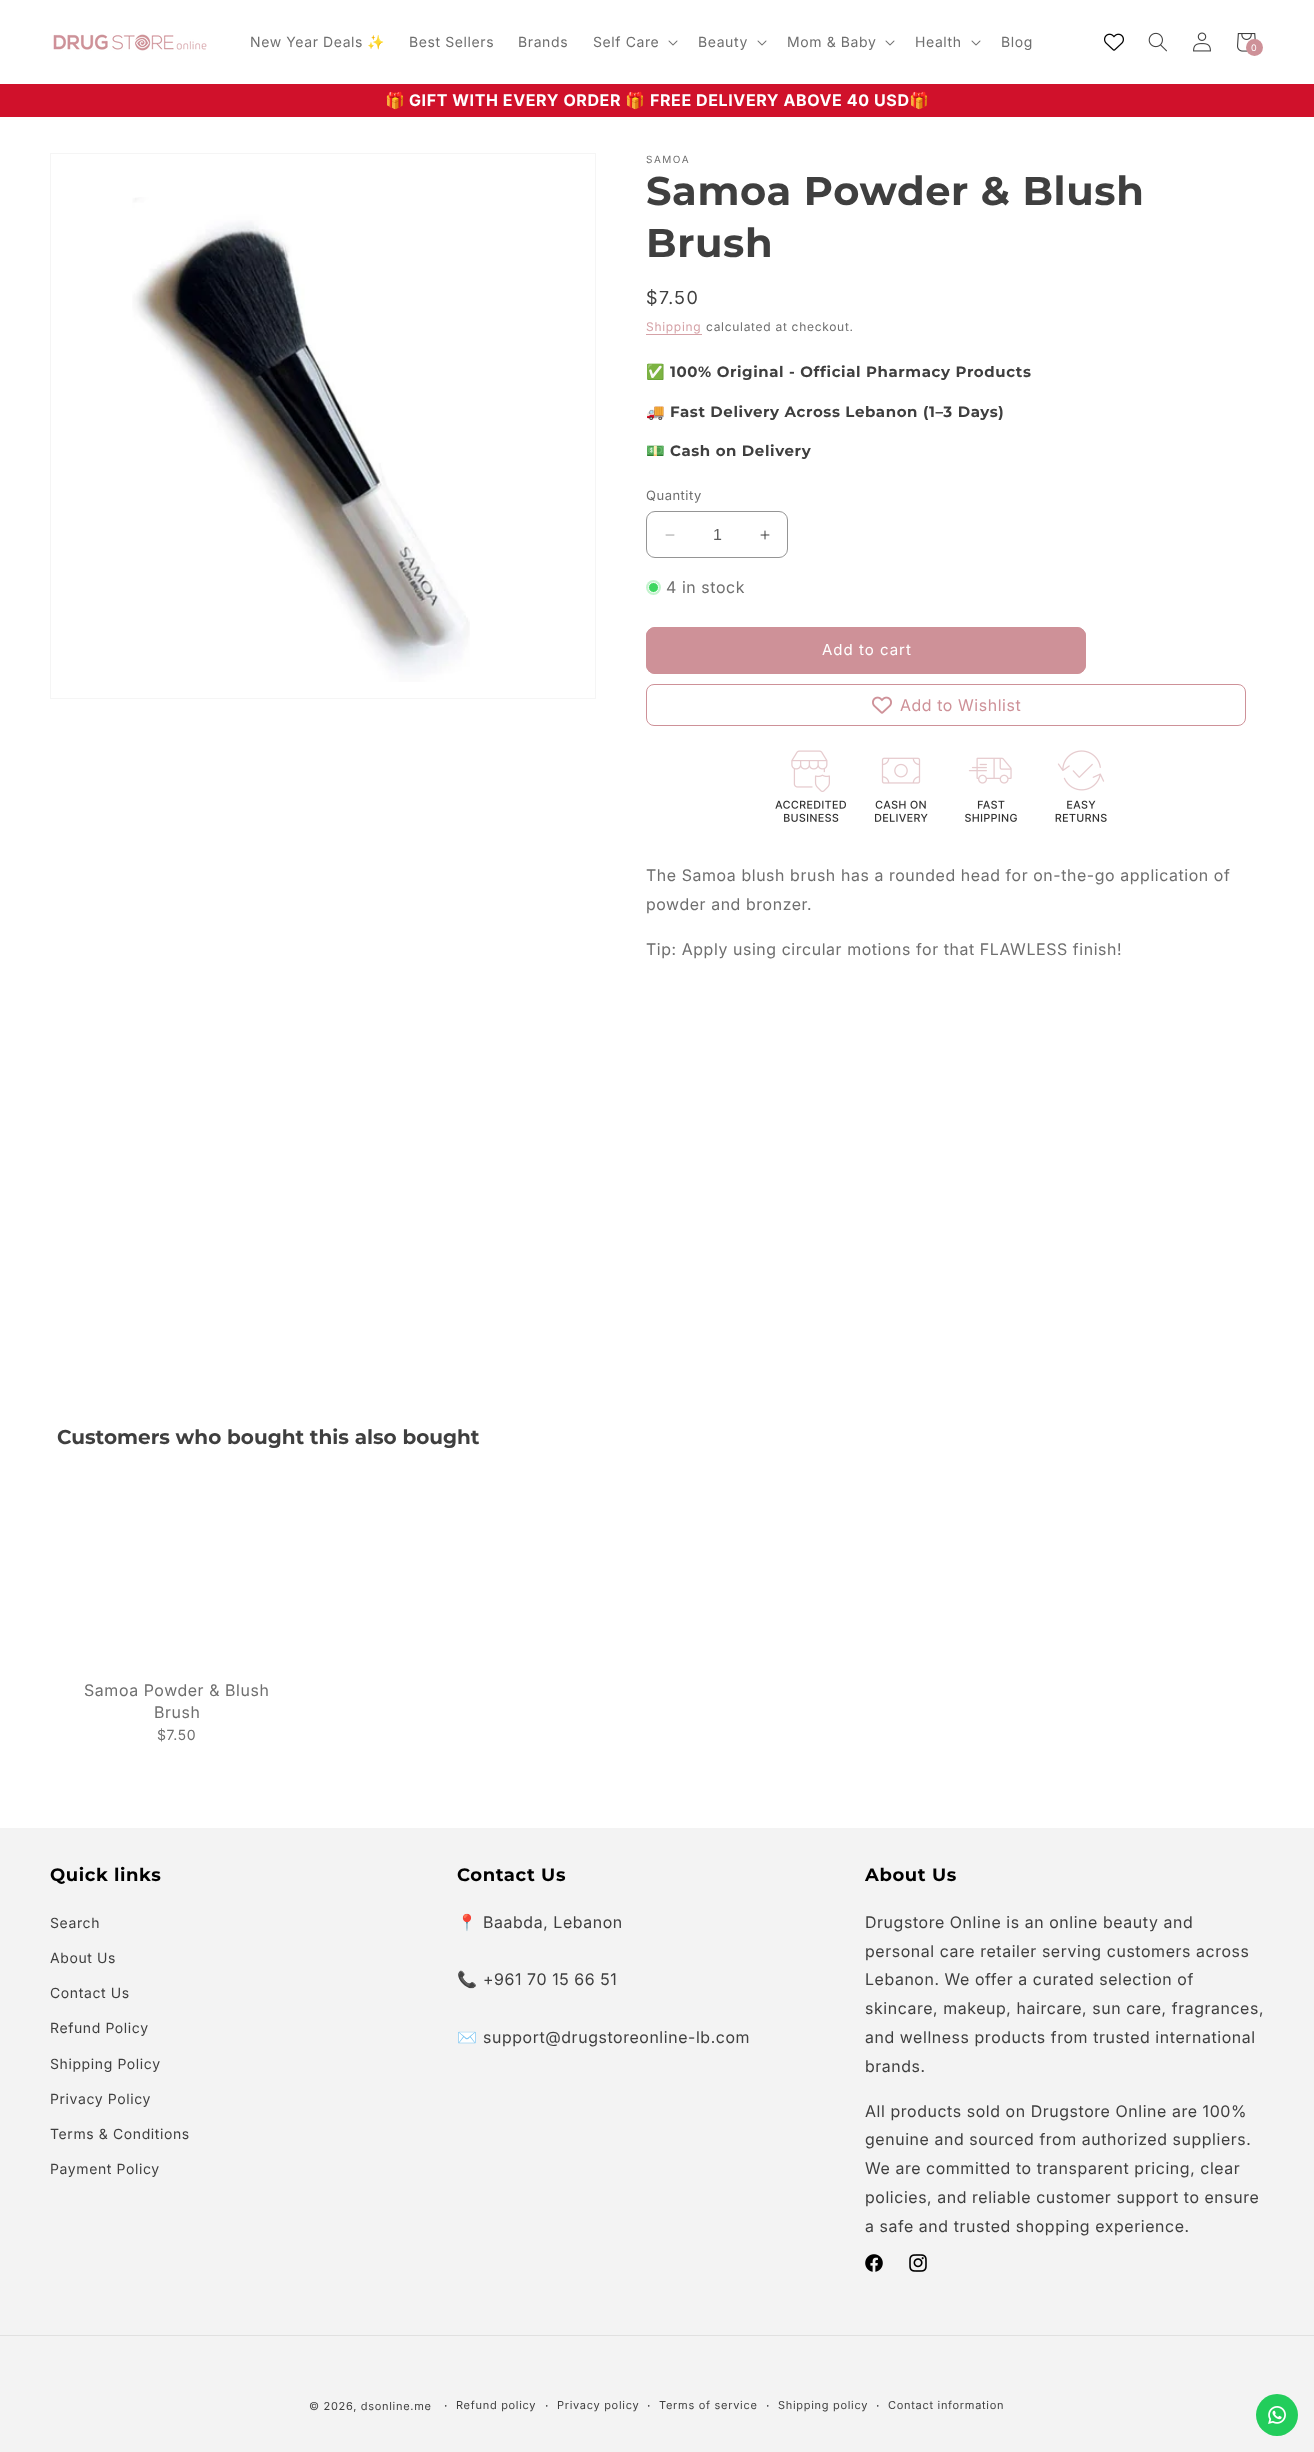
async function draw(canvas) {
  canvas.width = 1314;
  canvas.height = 2452;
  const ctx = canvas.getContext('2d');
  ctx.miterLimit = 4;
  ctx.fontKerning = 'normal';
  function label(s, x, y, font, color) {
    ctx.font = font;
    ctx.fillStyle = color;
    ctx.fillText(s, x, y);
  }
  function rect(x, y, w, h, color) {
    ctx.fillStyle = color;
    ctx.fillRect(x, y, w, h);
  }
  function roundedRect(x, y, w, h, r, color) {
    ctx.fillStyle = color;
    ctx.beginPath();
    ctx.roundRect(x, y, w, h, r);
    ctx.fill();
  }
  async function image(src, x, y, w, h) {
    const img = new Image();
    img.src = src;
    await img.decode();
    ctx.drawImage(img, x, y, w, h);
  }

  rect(0, 0, 1314, 2452, '#fff');
  await image('assets/img1.png', 53, 34, 154, 17);
  ctx.letterSpacing = '0.6px';
  label('New Year Deals', 250, 47, '14px Inter', '#6f6f6f');
  label('✨', 367, 47, '14px "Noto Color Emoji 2"', '#6f6f6f');
  label('Best Sellers', 409, 47, '14px Inter', '#6f6f6f');
  label('Brands', 518, 47, '14px Inter', '#6f6f6f');
  label('Self Care', 593, 47, '14px Inter', '#6f6f6f');
  await image('assets/img2.png', 668, 40, 10, 6);
  label('Beauty', 698, 47, '14px Inter', '#6f6f6f');
  await image('assets/img2.png', 757, 40, 10, 6);
  label('Mom & Baby', 787, 47, '14px Inter', '#6f6f6f');
  await image('assets/img2.png', 885, 40, 10, 6);
  label('Health', 915, 47, '14px Inter', '#6f6f6f');
  await image('assets/img2.png', 971, 40, 10, 6);
  label('Blog', 1001, 47, '14px Inter', '#6f6f6f');
  await image('assets/img3.png', 1104, 33, 20, 18);
  await image('assets/img4.png', 1148, 32, 19, 20);
  await image('assets/img5.png', 1193, 32, 18, 20);
  await image('assets/img6.png', 1237, 33, 19, 19);
  ctx.fillStyle = '#ce9198';
  ctx.beginPath();
  ctx.arc(1254.5, 47.5, 8.5, 0, 2 * Math.PI);
  ctx.fill();
  label('0', 1251, 51, '9px Inter', '#fff');
  rect(0, 84, 1314, 33, '#d0112b');
  label('🎁', 385, 106, 'bold 16px Noto Color Emoji', '#fff');
  label('GIFT WITH EVERY ORDER', 409, 106, 'bold 16px Inter', '#fff');
  label('🎁', 625, 106, 'bold 16px Noto Color Emoji', '#fff');
  label('FREE DELIVERY ABOVE 40 USD', 650, 106, 'bold 16px Inter', '#fff');
  label('🎁', 909, 106, 'bold 16px Noto Color Emoji', '#fff');
  ctx.strokeStyle = '#f5f5f5';
  ctx.strokeRect(50.5, 153.5, 545, 545);
  await image('assets/img7.png', 132, 197, 338, 485);
  ctx.letterSpacing = '1.5px';
  label('SAMOA', 646, 163, '10px Inter', '#6f6f6f');
  ctx.letterSpacing = '0.6px';
  label('Samoa Powder & Blush', 646, 205, 'bold 40px Montserrat', '#3f3f3f');
  label('Brush', 646, 257, 'bold 40px Montserrat', '#3f3f3f');
  ctx.letterSpacing = '1.5px';
  label('$7.50', 646, 304, '18px "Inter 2"', '#3f3f3f');
  ctx.letterSpacing = '0.7px';
  label('Shipping', 646, 331, '12px Inter', '#d5a2a7');
  rect(646, 334, 56, 1, '#d5a2a7');
  label('calculated at checkout.', 706, 331, '12px Inter', '#6f6f6f');
  ctx.letterSpacing = '0.6px';
  label('✅', 646, 377, 'bold 15px Noto Color Emoji', '#3f3f3f');
  label('100% Original - Official Pharmacy Products', 670, 377, 'bold 15px Montserrat', '#3f3f3f');
  label('🚚', 646, 417, 'bold 15px Noto Color Emoji', '#3f3f3f');
  label('Fast Delivery Across Lebanon (1–3 Days)', 670, 417, 'bold 15px Montserrat', '#3f3f3f');
  label('💵', 646, 456, 'bold 15px Noto Color Emoji', '#3f3f3f');
  label('Cash on Delivery', 670, 456, 'bold 15px Montserrat', '#3f3f3f');
  ctx.letterSpacing = '0.5px';
  label('Quantity', 646, 500, '13px Inter', '#6f6f6f');
  await image('assets/img8.png', 665, 534, 10, 2);
  await image('assets/img9.png', 760, 530, 10, 10);
  ctx.beginPath();
  ctx.roundRect(646.5, 511.5, 141, 46, 8.5);
  ctx.strokeStyle = '#959595';
  ctx.stroke();
  ctx.letterSpacing = '0px';
  label('1', 713, 540, '16px Liberation Sans', '#5c5c5c');
  ctx.fillStyle = '#c5f3cf';
  ctx.beginPath();
  ctx.arc(653.5, 587.5, 7.5, 0, 2 * Math.PI);
  ctx.fill();
  ctx.fillStyle = '#3ed660';
  ctx.beginPath();
  ctx.arc(653.5, 587.5, 5, 0, 2 * Math.PI);
  ctx.fill();
  ctx.strokeStyle = '#fff';
  ctx.stroke();
  ctx.letterSpacing = '0.6px';
  label('4 in stock', 666, 593, '16px "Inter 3"', '#6f6f6f');
  roundedRect(646, 627, 440, 47, 9, '#ce9198');
  ctx.beginPath();
  ctx.roundRect(646.5, 627.5, 439, 46, 8.5);
  ctx.strokeStyle = '#ce9198';
  ctx.stroke();
  ctx.letterSpacing = '1px';
  label('Add to cart', 822, 655, '15px Inter', '#fff');
  ctx.beginPath();
  ctx.roundRect(646.5, 684.5, 599, 41, 7.5);
  ctx.stroke();
  await image('assets/img10.png', 872, 696, 20, 18);
  ctx.letterSpacing = '0.6px';
  label('Add to Wishlist', 900, 711, '16px "Inter 3"', '#ce9198');
  await image('assets/img11.png', 775, 750, 71, 72);
  await image('assets/img12.png', 875, 757, 53, 65);
  await image('assets/img13.png', 965, 757, 52, 65);
  await image('assets/img14.png', 1055, 750, 52, 72);
  label('The Samoa blush brush has a rounded head for on-the-go application of', 646, 881, '16px "Inter 3"', '#6f6f6f');
  label('powder and bronzer.', 646, 910, '16px "Inter 3"', '#6f6f6f');
  label('Tip: Apply using circular motions for that FLAWLESS finish!', 646, 955, '16px "Inter 3"', '#6f6f6f');
  ctx.letterSpacing = '0px';
  label('Customers who bought this also bought', 57, 1444, 'bold 20px Montserrat', '#3f3f3f');
  ctx.letterSpacing = '0.6px';
  label('Samoa Powder & Blush', 84, 1696, '16px "Inter 3"', '#6f6f6f');
  label('Brush', 154, 1718, '16px "Inter 3"', '#6f6f6f');
  label('$7.50', 157, 1740, '14px Inter', '#6f6f6f');
  rect(0, 1828, 1314, 624, '#f3f3f3');
  label('Quick links', 50, 1881, 'bold 18px Montserrat', '#000');
  label('Search', 50, 1928, '14px Inter', '#3f3f3f');
  label('About Us', 50, 1963, '14px Inter', '#3f3f3f');
  label('Contact Us', 50, 1998, '14px Inter', '#3f3f3f');
  label('Refund Policy', 50, 2033, '14px Inter', '#3f3f3f');
  label('Shipping Policy', 50, 2069, '14px Inter', '#3f3f3f');
  label('Privacy Policy', 50, 2104, '14px Inter', '#3f3f3f');
  label('Terms & Conditions', 50, 2139, '14px Inter', '#3f3f3f');
  label('Payment Policy', 50, 2174, '14px Inter', '#3f3f3f');
  label('Contact Us', 457, 1881, 'bold 18px Montserrat', '#000');
  label('📍', 457, 1928, '16px Noto Color Emoji', '#3f3f3f');
  label('Baabda, Lebanon', 483, 1928, '16px "Inter 3"', '#3f3f3f');
  label('📞', 457, 1985, '16px Noto Color Emoji', '#3f3f3f');
  label('+961 70 15 66 51', 483, 1985, '16px "Inter 3"', '#3f3f3f');
  label('✉️', 457, 2043, '16px Noto Color Emoji', '#3f3f3f');
  label('support@drugstoreonline-lb.com', 483, 2043, '16px "Inter 3"', '#3f3f3f');
  label('About Us', 865, 1881, 'bold 18px Montserrat', '#000');
  label('Drugstore Online is an online beauty and', 865, 1928, '16px "Inter 3"', '#3f3f3f');
  label('personal care retailer serving customers across', 865, 1957, '16px "Inter 3"', '#3f3f3f');
  label('Lebanon. We offer a curated selection of', 865, 1985, '16px "Inter 3"', '#3f3f3f');
  label('skincare, makeup, haircare, sun care, fragrances,', 865, 2014, '16px "Inter 3"', '#3f3f3f');
  label('and wellness products from trusted international', 865, 2043, '16px "Inter 3"', '#3f3f3f');
  label('brands.', 865, 2072, '16px "Inter 3"', '#3f3f3f');
  label('All products sold on Drugstore Online are 100%', 865, 2117, '16px "Inter 3"', '#3f3f3f');
  label('genuine and sourced from authorized suppliers.', 865, 2145, '16px "Inter 3"', '#3f3f3f');
  label('We are committed to transparent pricing, clear', 865, 2174, '16px "Inter 3"', '#3f3f3f');
  label('policies, and reliable customer support to ensure', 865, 2203, '16px "Inter 3"', '#3f3f3f');
  label('a safe and trusted shopping experience.', 865, 2232, '16px "Inter 3"', '#3f3f3f');
  await image('assets/img15.png', 865, 2254, 18, 18);
  await image('assets/img16.png', 909, 2254, 18, 18);
  rect(0, 2335, 1314, 1, '#e0e0e0');
  ctx.letterSpacing = '0.7px';
  label('© 2026, dsonline.me', 309, 2410, '11px Inter', '#3f3f3f');
  label('·', 444, 2410, '12px Inter', '#3f3f3f');
  label('Refund policy', 456, 2409, '11px Inter', '#3f3f3f');
  label('·', 545, 2410, '12px Inter', '#3f3f3f');
  label('Privacy policy', 557, 2409, '11px Inter', '#3f3f3f');
  label('·', 647, 2410, '12px Inter', '#3f3f3f');
  label('Terms of service', 659, 2409, '11px Inter', '#3f3f3f');
  label('·', 766, 2410, '12px Inter', '#3f3f3f');
  label('Shipping policy', 778, 2409, '11px Inter', '#3f3f3f');
  label('·', 876, 2410, '12px Inter', '#3f3f3f');
  label('Contact information', 888, 2409, '11px Inter', '#3f3f3f');
  ctx.fillStyle = '#22cd5b';
  ctx.beginPath();
  ctx.arc(1277, 2415, 21, 0, 2 * Math.PI);
  ctx.fill();
  await image('assets/img17.png', 1268, 2406, 18, 18);
}

draw(document.querySelector('canvas'));
